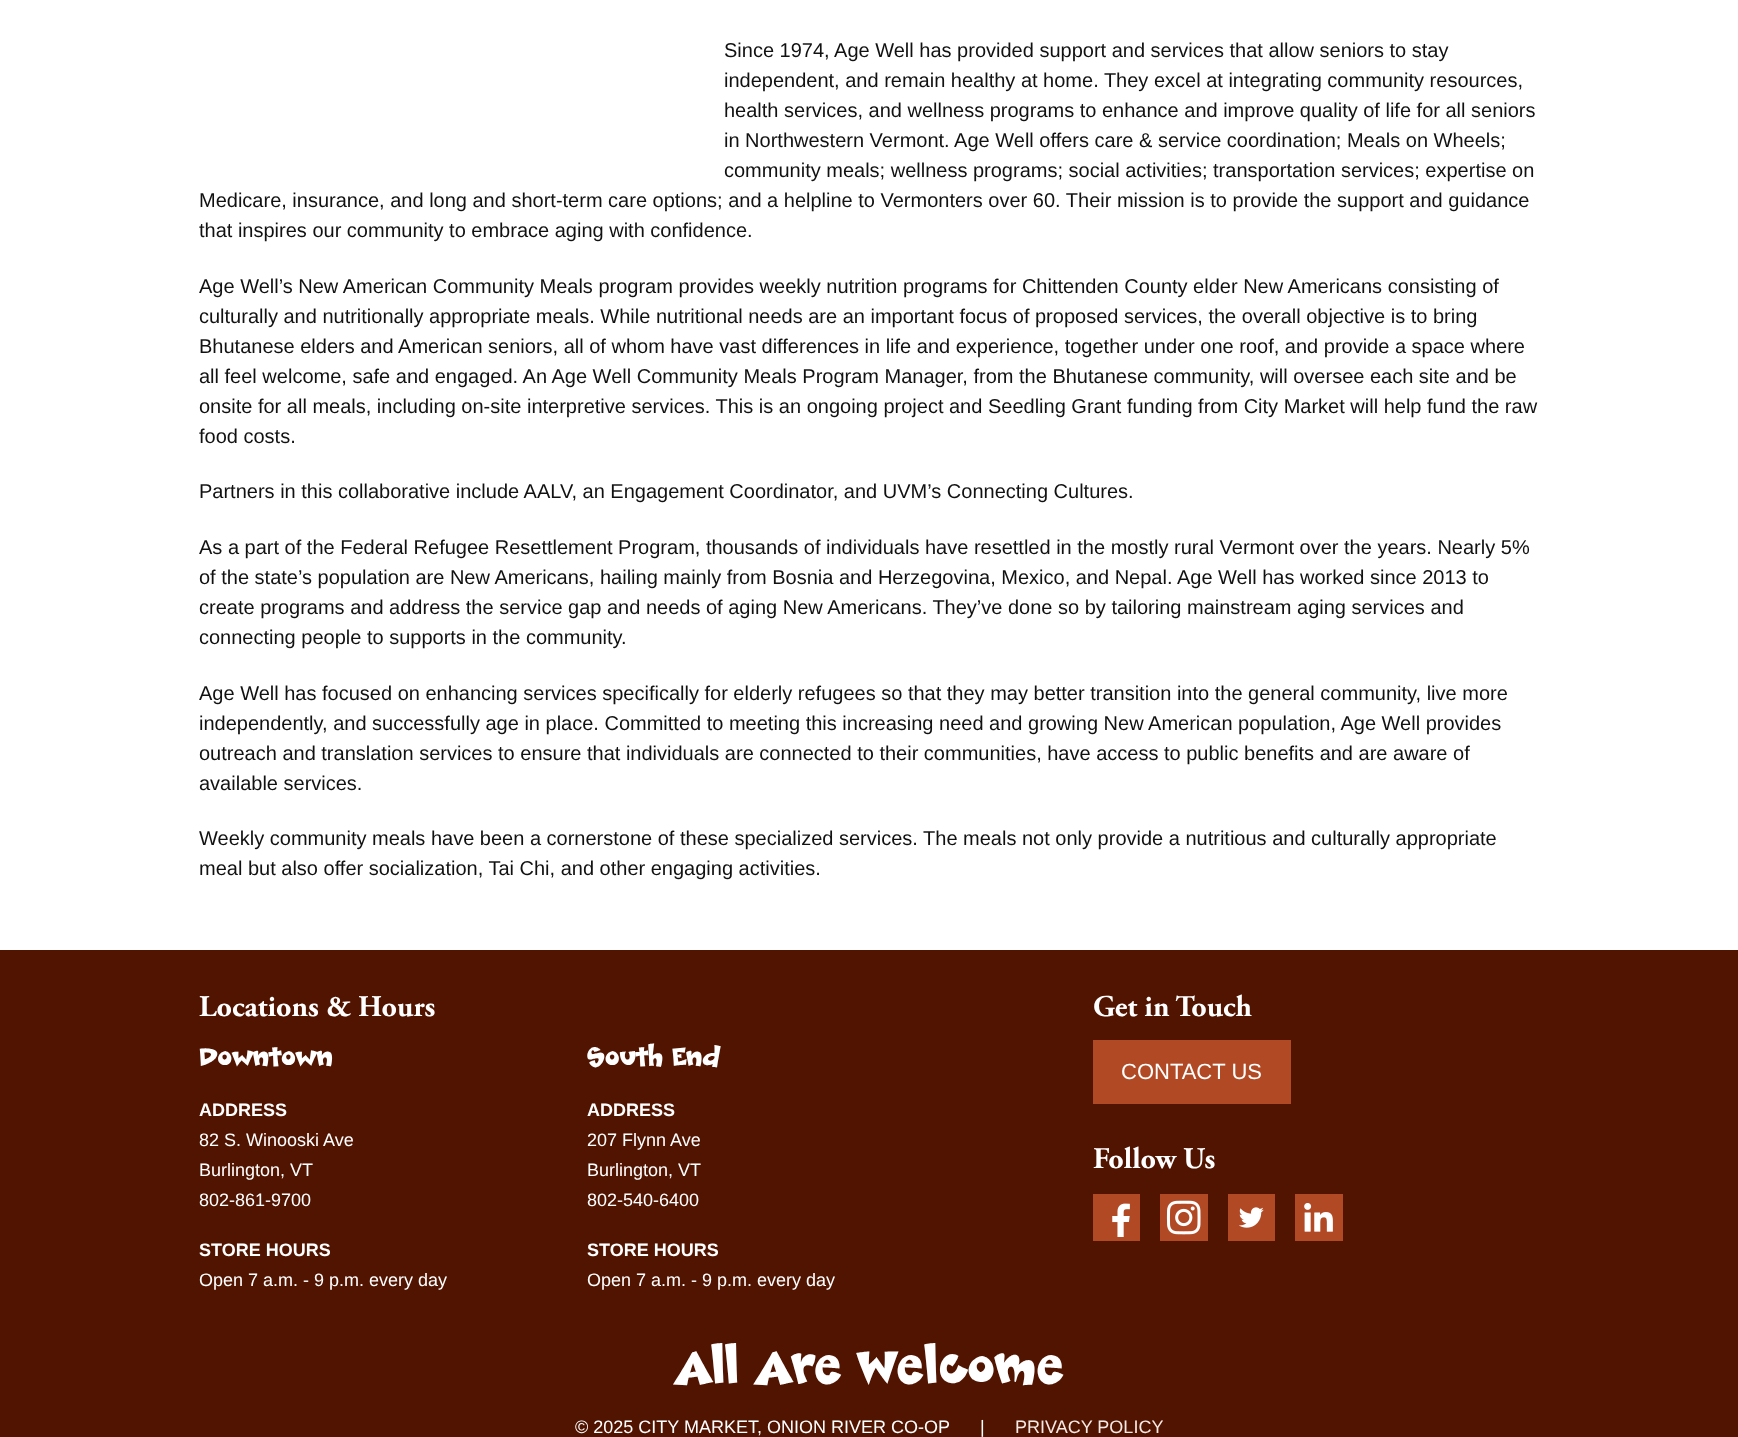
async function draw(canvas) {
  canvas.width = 1738;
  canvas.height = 1437;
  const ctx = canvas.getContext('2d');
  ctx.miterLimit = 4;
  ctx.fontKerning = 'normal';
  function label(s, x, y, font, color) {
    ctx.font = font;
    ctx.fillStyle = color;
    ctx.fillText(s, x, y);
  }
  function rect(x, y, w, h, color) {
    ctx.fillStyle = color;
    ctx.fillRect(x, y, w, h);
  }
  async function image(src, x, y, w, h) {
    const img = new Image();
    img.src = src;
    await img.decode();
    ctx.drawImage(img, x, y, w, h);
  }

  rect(0, 0, 1738, 1437, '#fff');
  label('Since 1974, Age Well has provided support and services that allow seniors to stay', 724, 57, '20px Liberation Sans', '#111');
  label('independent, and remain healthy at home. They excel at integrating community resources,', 724, 87, '20px Liberation Sans', '#111');
  label('health services, and wellness programs to enhance and improve quality of life for all seniors', 724, 117, '20px Liberation Sans', '#111');
  label('in Northwestern Vermont. Age Well offers care & service coordination; Meals on Wheels;', 724, 147, '20px Liberation Sans', '#111');
  label('community meals; wellness programs; social activities; transportation services; expertise on', 724, 177, '20px Liberation Sans', '#111');
  label('Medicare, insurance, and long and short-term care options; and a helpline to Vermonters over 60. Their mission is to provide the support and guidance', 199, 207, '20px Liberation Sans', '#111');
  label('that inspires our community to embrace aging with confidence.', 199, 237, '20px Liberation Sans', '#111');
  label('Age Well’s New American Community Meals program provides weekly nutrition programs for Chittenden County elder New Americans consisting of', 199, 293, '20px Liberation Sans', '#111');
  label('culturally and nutritionally appropriate meals. While nutritional needs are an important focus of proposed services, the overall objective is to bring', 199, 323, '20px Liberation Sans', '#111');
  label('Bhutanese elders and American seniors, all of whom have vast differences in life and experience, together under one roof, and provide a space where', 199, 353, '20px Liberation Sans', '#111');
  label('all feel welcome, safe and engaged. An Age Well Community Meals Program Manager, from the Bhutanese community, will oversee each site and be', 199, 383, '20px Liberation Sans', '#111');
  label('onsite for all meals, including on-site interpretive services. This is an ongoing project and Seedling Grant funding from City Market will help fund the raw', 199, 413, '20px Liberation Sans', '#111');
  label('food costs.', 199, 443, '20px Liberation Sans', '#111');
  label('Partners in this collaborative include AALV, an Engagement Coordinator, and UVM’s Connecting Cultures.', 199, 498, '20px Liberation Sans', '#111');
  label('As a part of the Federal Refugee Resettlement Program, thousands of individuals have resettled in the mostly rural Vermont over the years. Nearly 5%', 199, 554, '20px Liberation Sans', '#111');
  label('of the state’s population are New Americans, hailing mainly from Bosnia and Herzegovina, Mexico, and Nepal. Age Well has worked since 2013 to', 199, 584, '20px Liberation Sans', '#111');
  label('create programs and address the service gap and needs of aging New Americans. They’ve done so by tailoring mainstream aging services and', 199, 614, '20px Liberation Sans', '#111');
  label('connecting people to supports in the community.', 199, 644, '20px Liberation Sans', '#111');
  label('Age Well has focused on enhancing services specifically for elderly refugees so that they may better transition into the general community, live more', 199, 700, '20px Liberation Sans', '#111');
  label('independently, and successfully age in place. Committed to meeting this increasing need and growing New American population, Age Well provides', 199, 730, '20px Liberation Sans', '#111');
  label('outreach and translation services to ensure that individuals are connected to their communities, have access to public benefits and are aware of', 199, 760, '20px Liberation Sans', '#111');
  label('available services.', 199, 790, '20px Liberation Sans', '#111');
  label('Weekly community meals have been a cornerstone of these specialized services. The meals not only provide a nutritious and culturally appropriate', 199, 845, '20px Liberation Sans', '#111');
  label('meal but also offer socialization, Tai Chi, and other engaging activities.', 199, 875, '20px Liberation Sans', '#111');
  rect(0, 950, 1738, 487, '#511400');
  label('Locations & Hours', 199, 1016, 'bold 30px Adobe Garamond', '#fff');
  label('Downtown', 199, 1065, 'bold 32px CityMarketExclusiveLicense', '#fff');
  label('ADDRESS', 199, 1116, 'bold 18px Liberation Sans', '#fff');
  label('82 S. Winooski Ave', 199, 1146, '18px Liberation Sans', '#fff');
  label('Burlington, VT', 199, 1176, '18px Liberation Sans', '#fff');
  label('802-861-9700', 199, 1206, '18px Liberation Sans', '#fff');
  label('STORE HOURS', 199, 1256, 'bold 18px Liberation Sans', '#fff');
  label('Open 7 a.m. - 9 p.m. every day', 199, 1286, '18px Liberation Sans', '#fff');
  label('South End', 587, 1065, 'bold 32px CityMarketExclusiveLicense', '#fff');
  label('ADDRESS', 587, 1116, 'bold 18px Liberation Sans', '#fff');
  label('207 Flynn Ave', 587, 1146, '18px Liberation Sans', '#fff');
  label('Burlington, VT', 587, 1176, '18px Liberation Sans', '#fff');
  label('802-540-6400', 587, 1206, '18px Liberation Sans', '#fff');
  label('STORE HOURS', 587, 1256, 'bold 18px Liberation Sans', '#fff');
  label('Open 7 a.m. - 9 p.m. every day', 587, 1286, '18px Liberation Sans', '#fff');
  label('Get in Touch', 1093, 1016, 'bold 30px Adobe Garamond', '#fff');
  rect(1093, 1040, 198, 64, '#b14925');
  label('CONTACT US', 1121, 1079, '22px Liberation Sans', '#fff');
  label('Follow Us', 1093, 1168, 'bold 30px Adobe Garamond', '#fff');
  rect(1097, 1198, 39, 39, '#b14925');
  await image('assets/img1.png', 1112, 1203, 18, 34);
  ctx.strokeStyle = '#b14925';
  ctx.lineWidth = 4;
  ctx.strokeRect(1095, 1196, 43, 43);
  rect(1160, 1194, 48, 47, '#b14925');
  await image('assets/img2.png', 1166, 1200, 35, 35);
  rect(1228, 1194, 47, 47, '#b14925');
  await image('assets/img3.png', 1239, 1207, 25, 21);
  rect(1295, 1194, 48, 47, '#b14925');
  await image('assets/img4.png', 1304, 1203, 29, 29);
  label('All Are Welcome', 675, 1382, 'bold 60px CityMarketExclusiveLicense', '#fff');
  label('© 2025 CITY MARKET, ONION RIVER CO-OP', 575, 1433, '18px Liberation Sans', '#fff');
  label('|', 980, 1433, '18px Liberation Sans', '#fff');
  label('PRIVACY POLICY', 1015, 1433, '18px Liberation Sans', '#f7e9e4');
}

draw(document.querySelector('canvas'));
